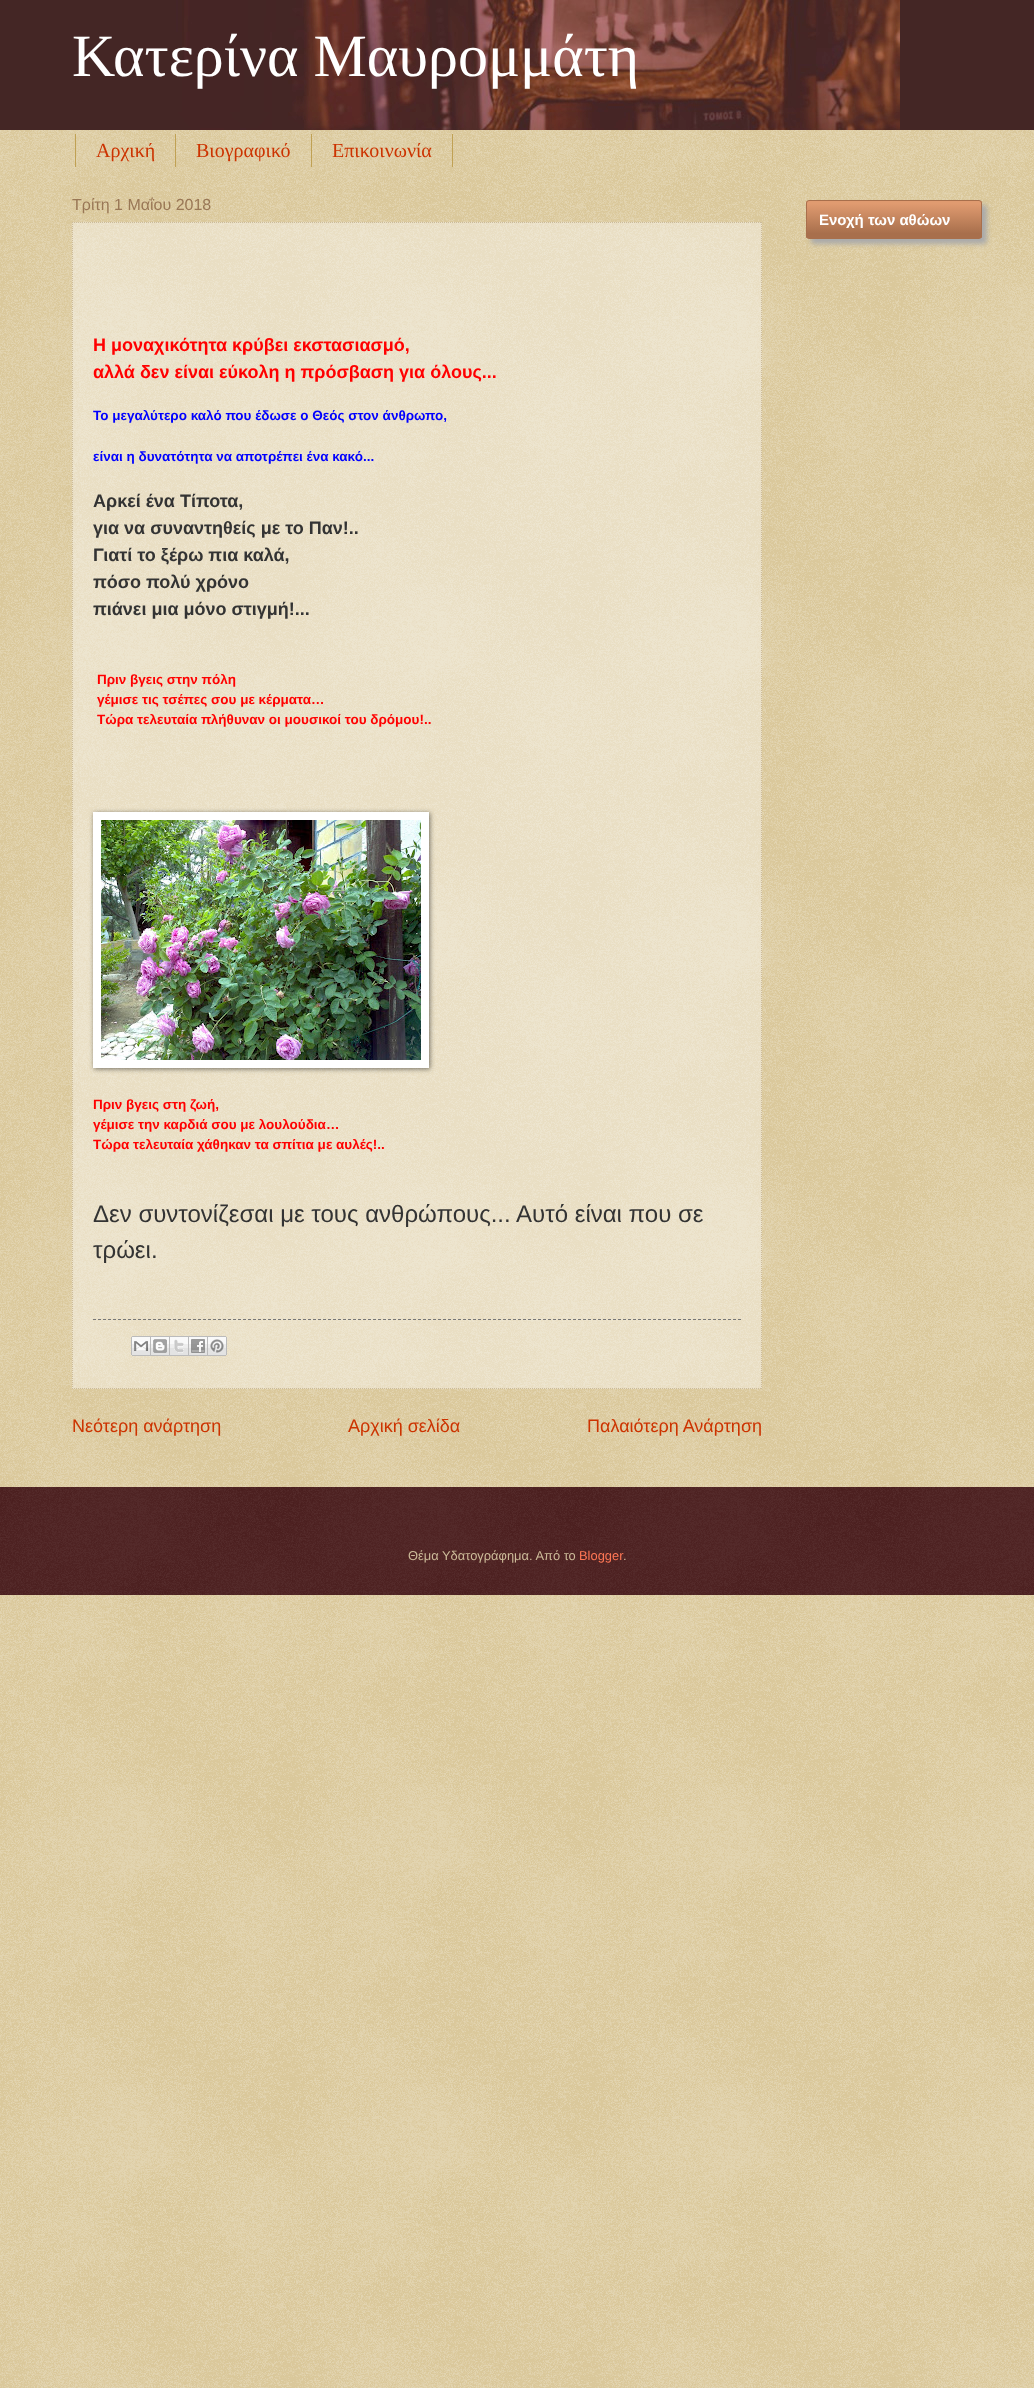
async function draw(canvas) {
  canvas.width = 1034;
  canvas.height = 2388;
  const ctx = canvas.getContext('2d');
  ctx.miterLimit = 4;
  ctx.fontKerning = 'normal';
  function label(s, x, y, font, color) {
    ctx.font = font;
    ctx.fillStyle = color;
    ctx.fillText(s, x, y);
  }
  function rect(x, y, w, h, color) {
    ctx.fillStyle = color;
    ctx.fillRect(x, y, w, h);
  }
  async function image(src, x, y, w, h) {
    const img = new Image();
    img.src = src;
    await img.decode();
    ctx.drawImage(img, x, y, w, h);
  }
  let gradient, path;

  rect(0, 0, 1034, 2388, '#c0a154');
  await image('assets/img1.png', 0, 130, 1034, 2258);
  await image('assets/img2.png', 0, 0, 1034, 130);
  label('Κατερίνα Μαυρομμάτη', 72, 76, '60px Liberation Serif', '#fff');
  rect(175, 134, 1, 33, '#c0a154');
  rect(75, 134, 1, 33, '#c0a154');
  label('Αρχική', 96, 157, '20px Liberation Serif', '#c30');
  rect(311, 134, 1, 33, '#c0a154');
  label('Βιογραφικό', 196, 157, '20px Liberation Serif', '#c30');
  rect(452, 134, 1, 33, '#c0a154');
  label('Επικοινωνία', 332, 157, '20px Liberation Serif', '#c30');
  label('Τρίτη 1 Μαΐου 2018', 72, 210, '16px Liberation Sans', '#975');
  rect(72, 222, 690, 1167, '#ffffff66');
  path = new Path2D('M72 222.5H762');
  ctx.strokeStyle = '#cb9';
  ctx.setLineDash([1, 1]);
  ctx.stroke(path);
  path = new Path2D('M761.5 222V1389');
  ctx.stroke(path);
  path = new Path2D('M72 1388.5H762');
  ctx.stroke(path);
  path = new Path2D('M72.5 222V1389');
  ctx.stroke(path);
  label('Η μοναχικότητα κρύβει εκστασιασμό,', 93, 351, 'bold 18px Liberation Sans', '#f00');
  label('αλλά δεν είναι εύκολη η πρόσβαση για όλους...', 93, 378, 'bold 18px Liberation Sans', '#f00');
  label('Το μεγαλύτερο καλό που έδωσε ο Θεός στον άνθρωπο,', 93, 420, 'bold 13.5px Liberation Sans', '#00f');
  label('είναι η δυνατότητα να αποτρέπει ένα κακό...', 93, 461, 'bold 13.5px Liberation Sans', '#00f');
  label('Αρκεί ένα Τίποτα,', 93, 507, 'bold 18px Liberation Sans', '#333');
  label('για να συναντηθείς με το Παν!..', 93, 534, 'bold 18px Liberation Sans', '#333');
  label('Γιατί το ξέρω πια καλά,', 93, 561, 'bold 18px Liberation Sans', '#333');
  label('πόσο πολύ χρόνο', 93, 588, 'bold 18px Liberation Sans', '#333');
  label('πιάνει μια μόνο στιγμή!...', 93, 615, 'bold 18px Liberation Sans', '#333');
  label('Πριν βγεις στην πόλη', 97, 684, 'bold 13.5px Liberation Sans', '#f00');
  label('γέμισε τις τσέπες σου με κέρματα…', 97, 704, 'bold 13.5px Liberation Sans', '#f00');
  label('Τώρα τελευταία πλήθυναν οι μουσικοί του δρόμου!..', 97, 724, 'bold 13.5px Liberation Sans', '#f00');
  ctx.fillStyle = '#00000080';
  ctx.filter = 'blur(2.5px)';
  ctx.beginPath();
  ctx.rect(94, 813, 336, 256);
  ctx.fill();
  ctx.filter = 'none';
  rect(93, 812, 336, 256, '#fff');
  await image('assets/img3.png', 101, 820, 320, 240);
  label('Πριν βγεις στη ζωή,', 93, 1109, 'bold 13.5px Liberation Sans', '#f00');
  label('γέμισε την καρδιά σου με λουλούδια…', 93, 1129, 'bold 13.5px Liberation Sans', '#f00');
  label('Τώρα τελευταία χάθηκαν τα σπίτια με αυλές!..', 93, 1149, 'bold 13.5px Liberation Sans', '#f00');
  label('Δεν συντονίζεσαι με τους ανθρώπους... Αυτό είναι που σε', 93, 1222, '24px Liberation Sans', '#333');
  label('τρώει.', 93, 1258, '24px Liberation Sans', '#333');
  path = new Path2D('M93 1319.5H741');
  ctx.strokeStyle = '#777';
  ctx.setLineDash([3, 2]);
  ctx.stroke(path);
  await image('assets/img4.png', 131, 1336, 20, 20);
  await image('assets/img5.png', 151, 1336, 19, 20);
  await image('assets/img6.png', 170, 1336, 19, 20);
  await image('assets/img7.png', 189, 1336, 19, 20);
  await image('assets/img8.png', 208, 1336, 19, 20);
  label('Νεότερη ανάρτηση', 72, 1432, '18px Liberation Sans', '#c30');
  label('Αρχική σελίδα', 348, 1432, '18px Liberation Sans', '#c30');
  label('Παλαιότερη Ανάρτηση', 587, 1432, '18px Liberation Sans', '#c30');
  ctx.fillStyle = '#aaa';
  ctx.filter = 'blur(2.5px)';
  ctx.beginPath();
  ctx.roundRect(811, 205, 176, 39, 3);
  ctx.fill();
  ctx.filter = 'none';
  ctx.save();
  ctx.beginPath();
  ctx.roundRect(806, 200, 176, 39, 3);
  ctx.clip();
  gradient = ctx.createLinearGradient(807, 238, 807, 201);
  gradient.addColorStop(0.12, '#a86f4c');
  gradient.addColorStop(0.93, '#e09b70');
  ctx.fillStyle = gradient;
  ctx.fillRect(806, 201, 176, 37);
  ctx.restore();
  ctx.beginPath();
  ctx.roundRect(806.5, 200.5, 175, 38, 2.5);
  ctx.strokeStyle = '#a86f4c';
  ctx.setLineDash([]);
  ctx.stroke();
  label('Ενοχή των αθώων', 819, 225, 'bold 15px Liberation Sans', '#fff');
  rect(0, 1487, 1034, 108, '#300');
  await image('assets/img9.png', 0, 1487, 1034, 108);
  label('Θέμα Υδατογράφημα. Από το', 408, 1560, '12.9px Liberation Sans', '#cb9');
  label('Blogger', 579, 1560, '12.9px Liberation Sans', '#f75');
  label('.', 623, 1560, '12.9px Liberation Sans', '#cb9');
}

draw(document.querySelector('canvas'));
